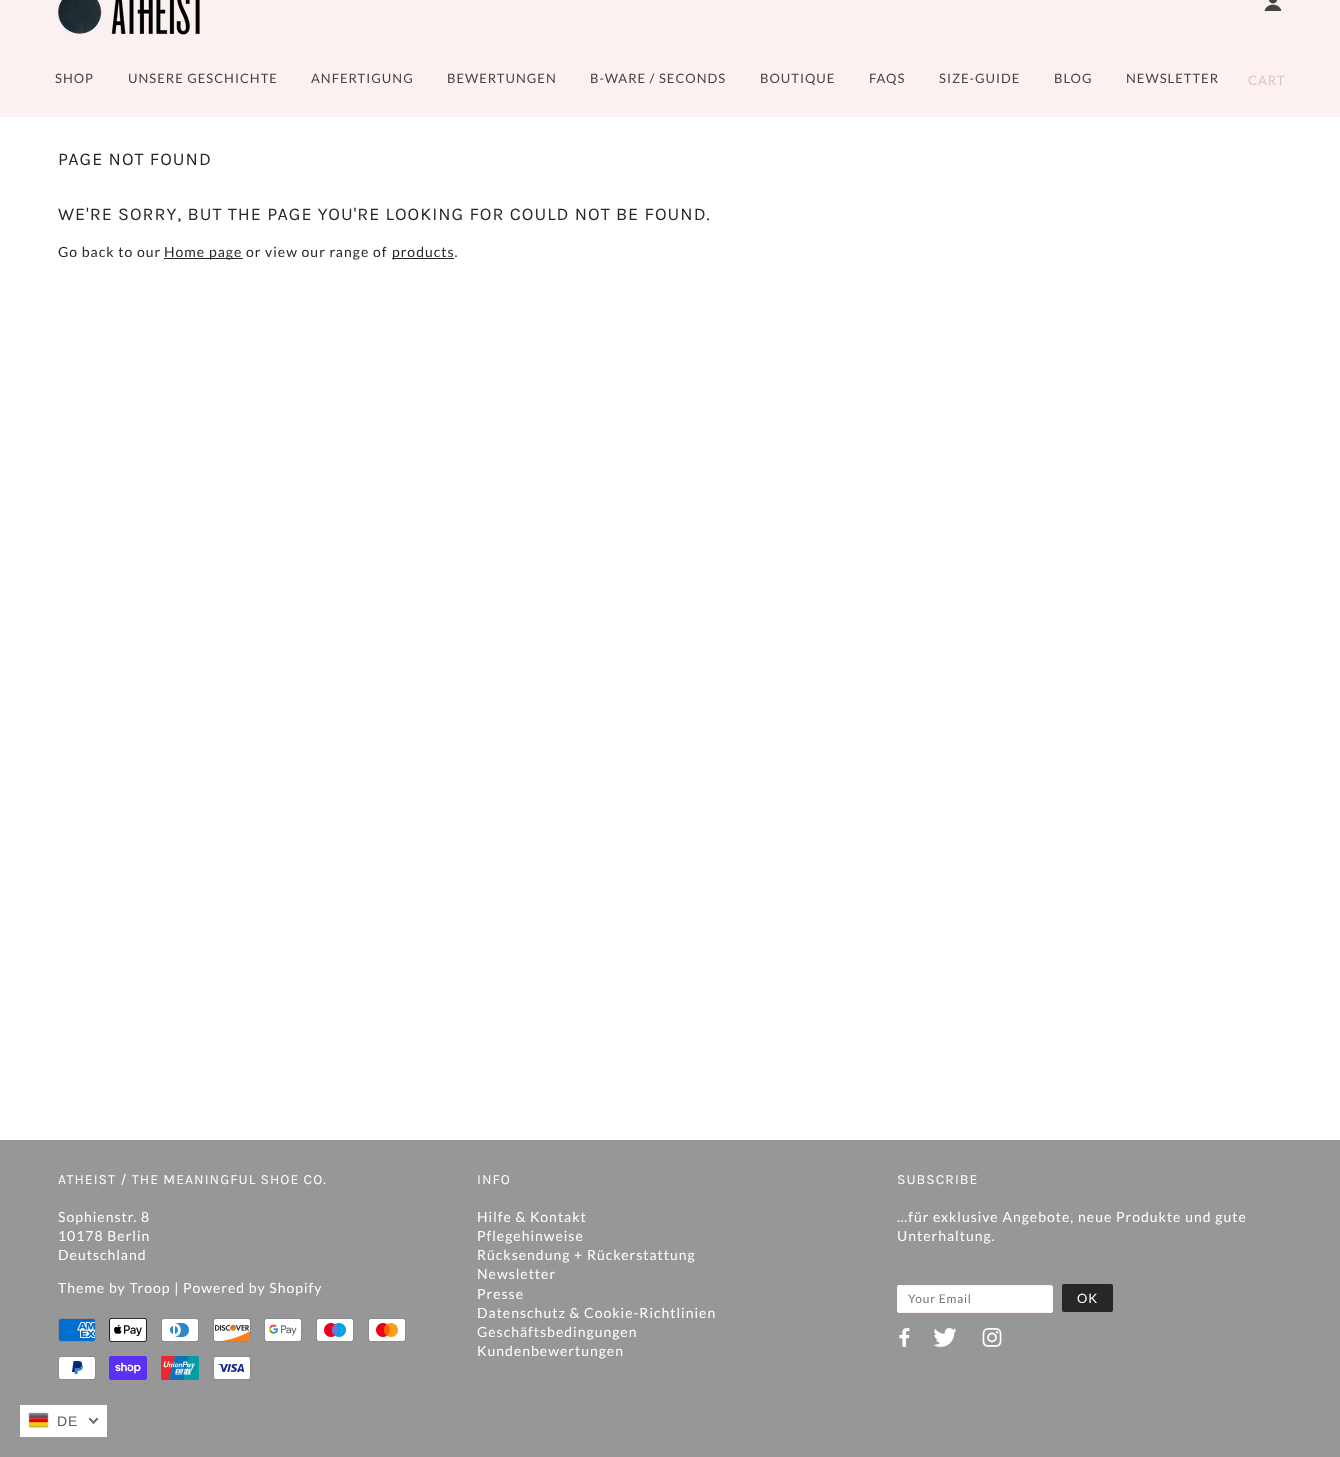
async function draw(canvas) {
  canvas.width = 1340;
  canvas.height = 1457;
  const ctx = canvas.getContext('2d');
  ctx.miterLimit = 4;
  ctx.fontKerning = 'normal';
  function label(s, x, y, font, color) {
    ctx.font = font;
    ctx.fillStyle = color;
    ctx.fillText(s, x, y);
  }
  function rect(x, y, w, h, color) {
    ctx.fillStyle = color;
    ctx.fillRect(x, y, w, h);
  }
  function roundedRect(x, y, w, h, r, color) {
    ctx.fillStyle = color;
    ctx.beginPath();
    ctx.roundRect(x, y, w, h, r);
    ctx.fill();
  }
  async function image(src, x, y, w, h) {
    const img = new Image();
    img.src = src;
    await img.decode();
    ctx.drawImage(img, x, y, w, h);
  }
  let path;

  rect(0, 0, 1340, 1457, '#fff');
  rect(0, 0, 1340, 117, '#fcf1f1');
  await image('assets/img1.png', 58, 0, 142, 35);
  await image('assets/img2.png', 1264, 0, 18, 11);
  ctx.letterSpacing = '1px';
  label('SHOP', 55, 83, '13px Lato', '#444');
  label('UNSERE GESCHICHTE', 128, 83, '13px Lato', '#444');
  label('ANFERTIGUNG', 311, 83, '13px Lato', '#444');
  label('BEWERTUNGEN', 447, 83, '13px Lato', '#444');
  label('B-WARE / SECONDS', 590, 83, '13px Lato', '#444');
  label('BOUTIQUE', 760, 83, '13px Lato', '#444');
  label('FAQS', 869, 83, '13px Lato', '#444');
  label('SIZE-GUIDE', 939, 83, '13px Lato', '#444');
  label('BLOG', 1054, 83, '13px Lato', '#444');
  label('NEWSLETTER', 1126, 83, '13px Lato', '#444');
  label('CART', 1248, 85, '13px Lato', '#e1c4c4');
  label('PAGE NOT FOUND', 58, 165, '18px Karla', '#272727');
  label('WE\'RE SORRY, BUT THE PAGE YOU\'RE LOOKING FOR COULD NOT BE FOUND.', 58, 220, '18px Karla', '#272727');
  label('Go back to our', 58, 257, '14px Lato', '#272727');
  rect(164, 258, 79, 1, '#272727');
  label('Home page or view our range of', 164, 257, '14px Lato', '#272727');
  rect(392, 258, 62, 1, '#272727');
  label('products.', 392, 257, '14px Lato', '#272727');
  rect(0, 1140, 1340, 317, '#979797');
  label('ATHEIST / THE MEANINGFUL SHOE CO.', 58, 1184, '14px Karla', '#fff');
  label('Sophienstr. 8', 58, 1222, '14px Lato', '#fff');
  label('10178 Berlin', 58, 1241, '14px Lato', '#fff');
  label('Deutschland', 58, 1260, '14px Lato', '#fff');
  label('Theme by Troop | Powered by Shopify', 58, 1293, '14px Lato', '#fff');
  await image('assets/img3.png', 58, 1318, 38, 24);
  await image('assets/img4.png', 109, 1318, 38, 24);
  await image('assets/img5.png', 161, 1318, 38, 24);
  await image('assets/img6.png', 213, 1318, 38, 24);
  await image('assets/img7.png', 264, 1318, 38, 24);
  await image('assets/img8.png', 316, 1318, 38, 24);
  await image('assets/img9.png', 368, 1318, 38, 24);
  await image('assets/img10.png', 58, 1356, 38, 24);
  await image('assets/img11.png', 109, 1356, 38, 24);
  await image('assets/img12.png', 161, 1356, 38, 24);
  await image('assets/img13.png', 213, 1356, 38, 24);
  label('INFO', 477, 1184, '14px Karla', '#fff');
  label('Hilfe & Kontakt', 477, 1222, '14px Lato', '#fff');
  label('Pflegehinweise', 477, 1241, '14px Lato', '#fff');
  label('Rücksendung + Rückerstattung', 477, 1260, '14px Lato', '#fff');
  label('Newsletter', 477, 1279, '14px Lato', '#fff');
  label('Presse', 477, 1299, '14px Lato', '#fff');
  label('Datenschutz & Cookie-Richtlinien', 477, 1318, '14px Lato', '#fff');
  label('Geschäftsbedingungen', 477, 1337, '14px Lato', '#fff');
  label('Kundenbewertungen', 477, 1356, '14px Lato', '#fff');
  label('SUBSCRIBE', 897, 1184, '14px Karla', '#fff');
  label('…für exklusive Angebote, neue Produkte und gute', 897, 1222, '14px Lato', '#fff');
  label('Unterhaltung.', 897, 1241, '14px Lato', '#fff');
  ctx.beginPath();
  ctx.roundRect(897.5, 1285.5, 155, 27, 1.5);
  ctx.fill();
  ctx.strokeStyle = '#fff1f1';
  ctx.stroke();
  ctx.letterSpacing = '0.75px';
  label('Your Email', 908, 1303, '12px Lato', '#757575');
  roundedRect(1062, 1284, 51, 28, 2, '#272727');
  ctx.letterSpacing = '1px';
  label('OK', 1077, 1303, '13px Lato', '#fff');
  await image('assets/img14.png', 899, 1328, 11, 19);
  await image('assets/img15.png', 933, 1328, 24, 19);
  await image('assets/img16.png', 982, 1328, 20, 19);
  rect(20, 1405, 87, 32, '#fff');
  await image('assets/img17.png', 28, 1412, 21, 16);
  label('DE', 57, 1426, '14px Liberation Sans', '#5c5c5c');
  ctx.fillStyle = '#6c6c6c';
  path = new Path2D('M97 1417.5L98.5 1419L93.5 1424L92 1422.5Z');
  ctx.fill(path);
  path = new Path2D('M90 1417.5L94.5 1422.5L93.5 1424L88.5 1419Z');
  ctx.fill(path);
}

draw(document.querySelector('canvas'));
